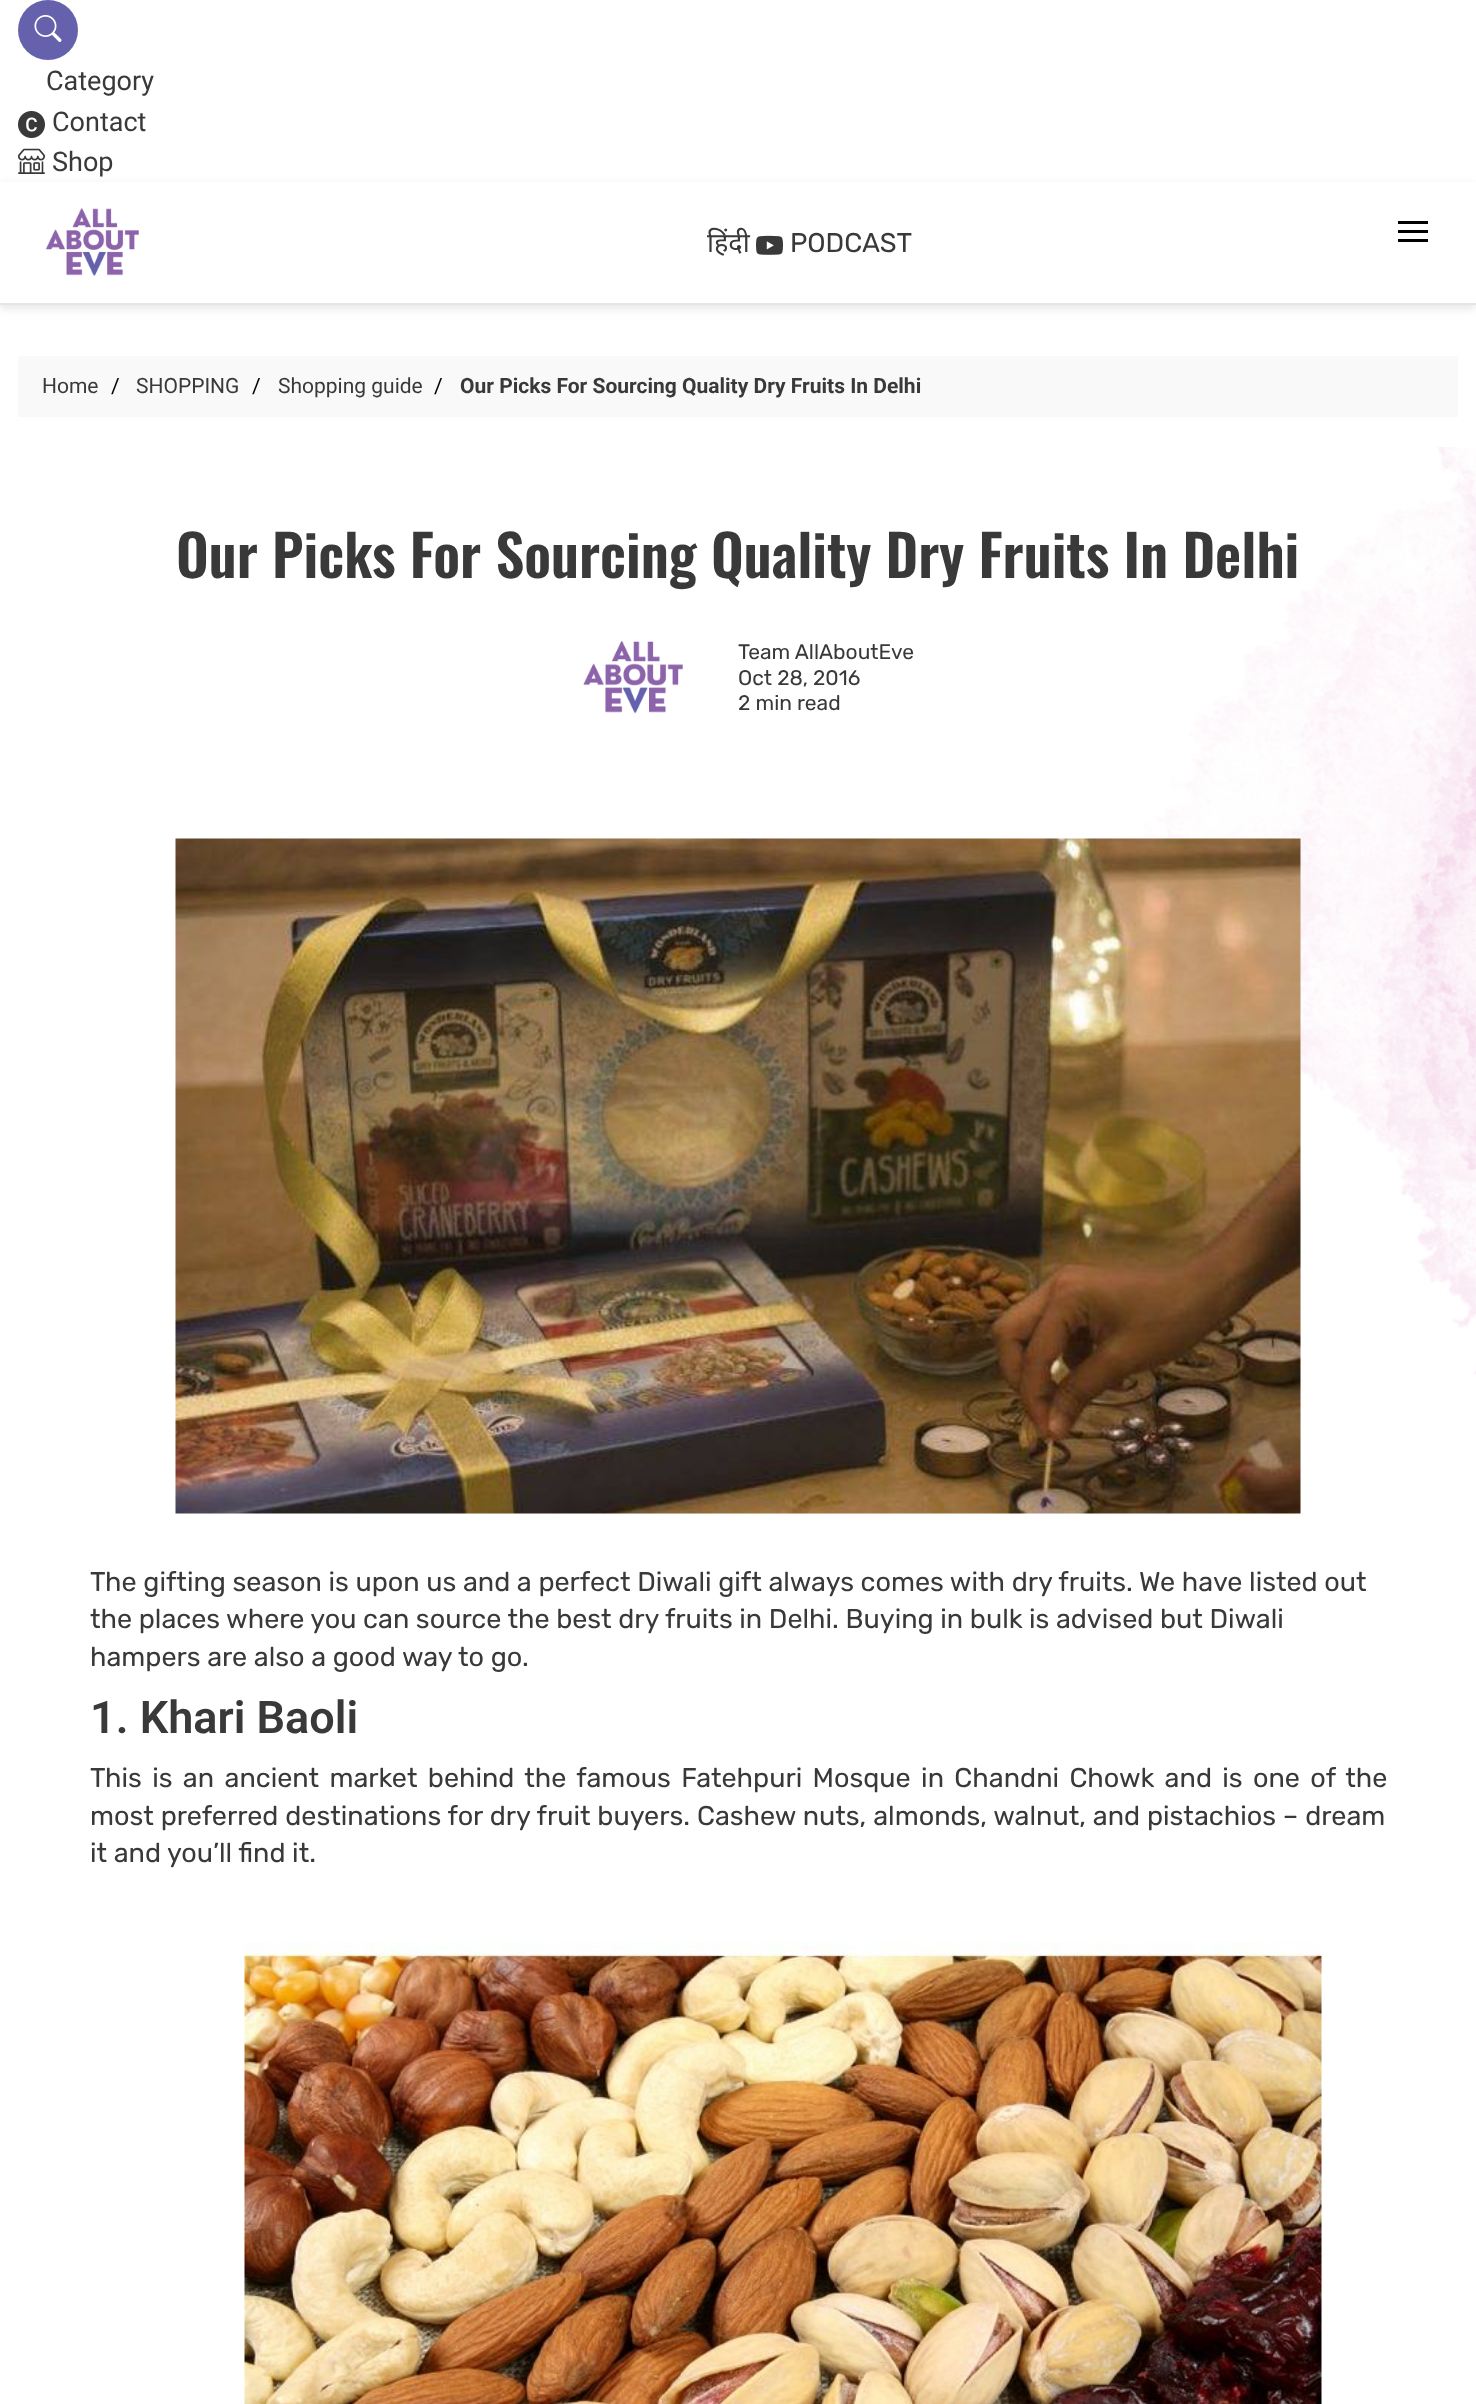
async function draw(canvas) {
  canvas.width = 1476;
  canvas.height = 2404;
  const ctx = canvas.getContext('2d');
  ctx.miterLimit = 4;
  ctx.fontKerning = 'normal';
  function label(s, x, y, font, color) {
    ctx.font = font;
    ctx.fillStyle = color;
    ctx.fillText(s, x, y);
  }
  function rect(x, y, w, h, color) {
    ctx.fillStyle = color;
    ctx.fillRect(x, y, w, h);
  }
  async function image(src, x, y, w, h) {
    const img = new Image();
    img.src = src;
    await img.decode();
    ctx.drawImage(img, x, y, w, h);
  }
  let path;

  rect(0, 0, 1476, 2404, '#fff');
  ctx.fillStyle = '#6561ad';
  ctx.beginPath();
  ctx.arc(48, 30, 30, 0, 2 * Math.PI);
  ctx.fill();
  await image('assets/img1.png', 34, 15, 28, 27);
  label('Category', 46, 90, '27px Roboto', '#393939');
  await image('assets/img2.png', 18, 111, 27, 27);
  label('Contact', 52, 131, '27px Roboto', '#393939');
  ctx.save();
  path = new Path2D('M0 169H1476V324H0ZM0 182H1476V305H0Z');
  ctx.clip(path, 'evenodd');
  ctx.fillStyle = '#0000001c';
  ctx.filter = 'blur(5px)';
  ctx.beginPath();
  ctx.rect(0, 185, 1476, 123);
  ctx.fill();
  ctx.filter = 'none';
  ctx.restore();
  await image('assets/img3.png', 18, 148, 27, 26);
  label('Shop', 52, 171, '27px Roboto', '#393939');
  rect(0, 303, 1476, 2, '#0000001a');
  await image('assets/img4.png', 45, 208, 94, 68);
  label('हिंदी', 707, 252, '27px Noto Sans', '#393939');
  await image('assets/img5.png', 756, 235, 27, 20);
  label('PODCAST', 790, 252, '300 27px Rubik', '#393939');
  rect(1398, 221, 30, 3, '#000');
  rect(1398, 230, 30, 3, '#000');
  rect(1398, 239, 30, 3, '#000');
  rect(18, 356, 1440, 61, '#faf9f9');
  label('Home', 42, 393, '21px Roboto', '#393939');
  label('/', 111, 393, '21px Roboto', '#000');
  label('SHOPPING', 136, 393, '21px Roboto', '#393939');
  label('/', 252, 393, '21px Roboto', '#000');
  label('Shopping guide', 278, 393, '21px Roboto', '#393939');
  label('/', 434, 393, '21px Roboto', '#000');
  label('Our Picks For Sourcing Quality Dry Fruits In Delhi', 460, 393, 'bold 21px Roboto', '#393939');
  await image('assets/img6.png', 1144, 447, 332, 928);
  label('Our Picks For Sourcing Quality Dry Fruits In Delhi', 176, 578, '600 57px Oswald', '#393939');
  await image('assets/img7.png', 583, 641, 100, 73);
  label('Team AllAboutEve', 738, 659, '300 21px Rubik', '#393939');
  label('Oct 28, 2016', 738, 685, '300 21px Rubik', '#393939');
  label('2 min read', 738, 710, '300 21px Rubik', '#393939');
  await image('assets/img8.png', 175, 838, 1126, 676);
  label('The gifting season is upon us and a perfect Diwali gift always comes with dry fruits. We have listed out', 90, 1591, '300 27px Rubik', '#393939');
  label('the places where you can source the best dry fruits in Delhi. Buying in bulk is advised but Diwali', 90, 1628, '300 27px Rubik', '#393939');
  label('hampers are also a good way to go.', 90, 1666, '300 27px Rubik', '#393939');
  label('1. Khari Baoli', 90, 1733, '600 45px Roboto', '#393939');
  ctx.wordSpacing = '3.75px';
  label('This is an ancient market behind the famous Fatehpuri Mosque in Chandni Chowk and is one of the', 90, 1787, '300 27px Rubik', '#393939');
  ctx.wordSpacing = '0.25px';
  label('most preferred destinations for dry fruit buyers. Cashew nuts, almonds, walnut, and pistachios – dream', 90, 1825, '300 27px Rubik', '#393939');
  ctx.wordSpacing = '0px';
  label('it and you’ll find it.', 90, 1862, '300 27px Rubik', '#393939');
  await image('assets/img9.png', 244, 1942, 1078, 462);
}

draw(document.querySelector('canvas'));
